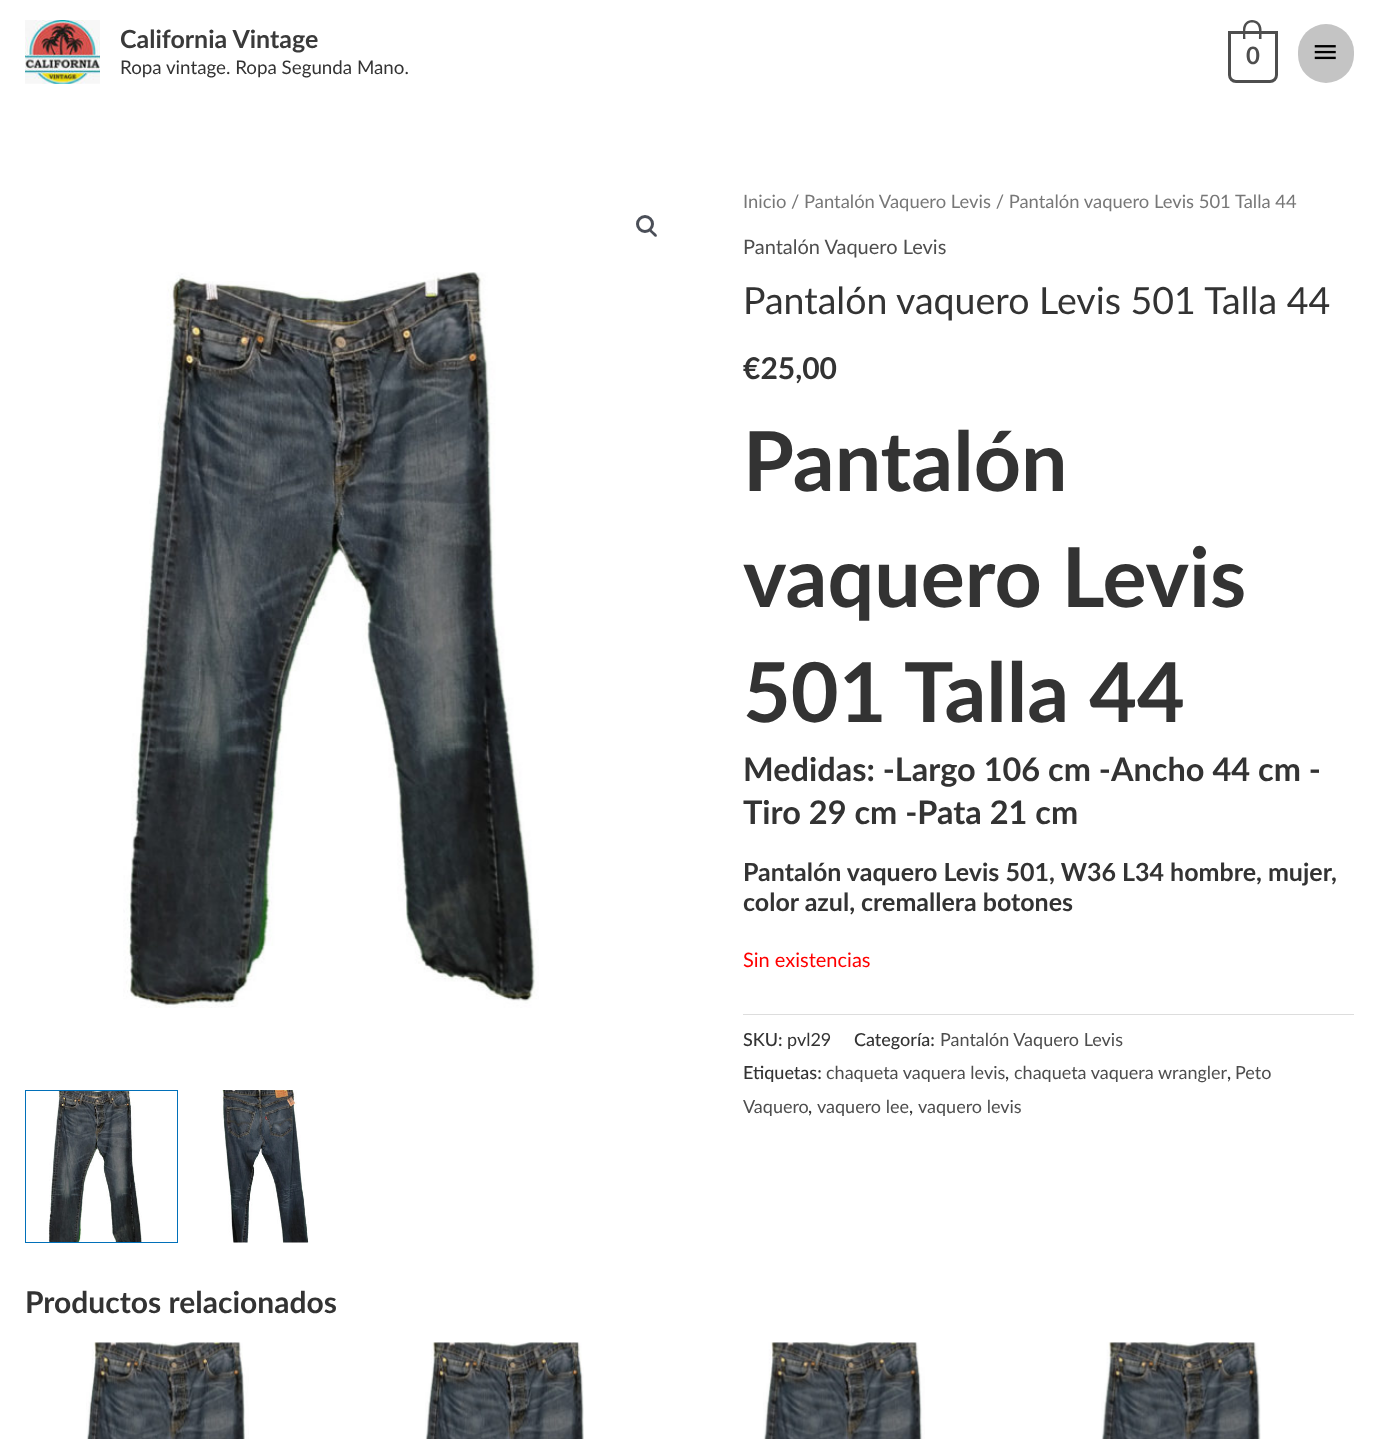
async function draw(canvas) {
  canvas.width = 1378;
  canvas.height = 1439;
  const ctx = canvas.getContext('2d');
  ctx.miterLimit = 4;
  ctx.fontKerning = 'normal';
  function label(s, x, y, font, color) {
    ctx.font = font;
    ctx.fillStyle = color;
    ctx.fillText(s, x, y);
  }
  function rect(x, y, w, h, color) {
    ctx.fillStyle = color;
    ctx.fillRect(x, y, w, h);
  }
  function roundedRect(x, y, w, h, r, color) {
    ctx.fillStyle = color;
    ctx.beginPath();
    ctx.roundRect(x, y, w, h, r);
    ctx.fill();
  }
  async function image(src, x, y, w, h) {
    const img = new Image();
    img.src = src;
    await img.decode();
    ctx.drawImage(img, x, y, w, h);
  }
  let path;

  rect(0, 0, 1378, 1439, '#fff');
  await image('assets/img1.png', 25, 20, 75, 64);
  label('California Vintage', 120, 48, 'bold 25px Lato', '#3a3a3a');
  label('Ropa vintage. Ropa Segunda Mano.', 120, 74, '18.75px Lato', '#333');
  ctx.beginPath();
  ctx.roundRect(1229.5, 32.5, 47, 49, [0, 0, 6.5, 6.5]);
  ctx.strokeStyle = '#4e4e4e';
  ctx.lineWidth = 3;
  ctx.stroke();
  ctx.fillStyle = '#4e4e4e';
  path = new Path2D('M1252 20C1257.5 20 1261.5 24 1261.5 29.5V39H1243V29.5C1243 24 1247 20 1252 20ZM1252 22.5C1261 22.5 1259 33 1259 39H1245.5C1245.5 33 1243.5 22.5 1252 22.5Z');
  ctx.fill(path, 'evenodd');
  label('0', 1246, 64, 'bold 24px Lato', '#4e4e4e');
  roundedRect(1298, 24, 56, 59, 28, '#c4c4c4');
  await image('assets/img2.png', 1314, 45, 22, 15);
  ctx.beginPath();
  ctx.arc(645, 224, 7.5, 0, 2 * Math.PI);
  ctx.strokeStyle = '#4b4f58';
  ctx.stroke();
  ctx.fillStyle = '#4b4f58';
  path = new Path2D('M649.5 229.5C651 228 653 231.5 654 232C655 233 658 235 656.5 236.5C655 238 653 234.5 652 234C651.5 233 648 231 649.5 229.5Z');
  ctx.fill(path);
  await image('assets/img3.png', 123, 272, 416, 736);
  await image('assets/img4.png', 48, 1091, 94, 151);
  ctx.strokeStyle = '#0170b9';
  ctx.lineWidth = 1;
  ctx.strokeRect(25.5, 1090.5, 152, 152);
  await image('assets/img5.png', 220, 1090, 89, 153);
  label('Inicio / Pantalón Vaquero Levis / Pantalón vaquero Levis 501 Talla 44', 743, 208, '18.4px Lato', '#777');
  label('Pantalón Vaquero Levis', 743, 254, '20px Lato', '#4e4e4e');
  label('Pantalón vaquero Levis 501 Talla 44', 743, 314, '37.5px Lato', '#333');
  label('€25,00', 743, 379, 'bold 30px Lato', '#333');
  label('Pantalón', 743, 491, 'bold 82.5px Lato', '#333');
  label('vaquero Levis', 743, 607, 'bold 82.5px Lato', '#333');
  label('501 Talla 44', 743, 722, 'bold 82.5px Lato', '#333');
  label('Medidas: -Largo 106 cm -Ancho 44 cm -', 743, 781, 'bold 32.5px Lato', '#333');
  label('Tiro 29 cm -Pata 21 cm', 743, 824, 'bold 32.5px Lato', '#333');
  label('Pantalón vaquero Levis 501, W36 L34 hombre, mujer,', 743, 881, 'bold 25px Lato', '#333');
  label('color azul, cremallera botones', 743, 911, 'bold 25px Lato', '#333');
  label('Sin existencias', 743, 967, '20px Lato', '#f00');
  rect(743, 1014, 611, 1, '#ddd');
  label('SKU:', 743, 1046, '500 18px Lato', '#333');
  label('pvl29', 787, 1046, '18px Lato', '#333');
  label('Categoría:', 854, 1046, '500 18px Lato', '#333');
  label('Pantalón Vaquero Levis', 940, 1046, '18px Lato', '#4e4e4e');
  label('Etiquetas:', 743, 1079, '500 18px Lato', '#333');
  label('chaqueta vaquera levis', 826, 1079, '18px Lato', '#4e4e4e');
  label(',', 1005, 1079, '500 18px Lato', '#333');
  label('chaqueta vaquera wrangler', 1014, 1079, '18px Lato', '#4e4e4e');
  label(',', 1227, 1079, '500 18px Lato', '#333');
  label('Peto', 1235, 1079, '18px Lato', '#4e4e4e');
  label('Vaquero', 743, 1113, '18px Lato', '#4e4e4e');
  label(',', 808, 1113, '500 18px Lato', '#333');
  label('vaquero lee', 817, 1113, '18px Lato', '#4e4e4e');
  label(',', 909, 1113, '500 18px Lato', '#333');
  label('vaquero levis', 918, 1113, '18px Lato', '#4e4e4e');
  label('Productos relacionados', 25, 1313, 'bold 30px Lato', '#333');
  await image('assets/img6.png', 86, 1342, 163, 97);
  await image('assets/img7.png', 425, 1342, 159, 97);
  await image('assets/img8.png', 763, 1342, 162, 97);
  await image('assets/img9.png', 1101, 1342, 160, 97);
}

draw(document.querySelector('canvas'));
